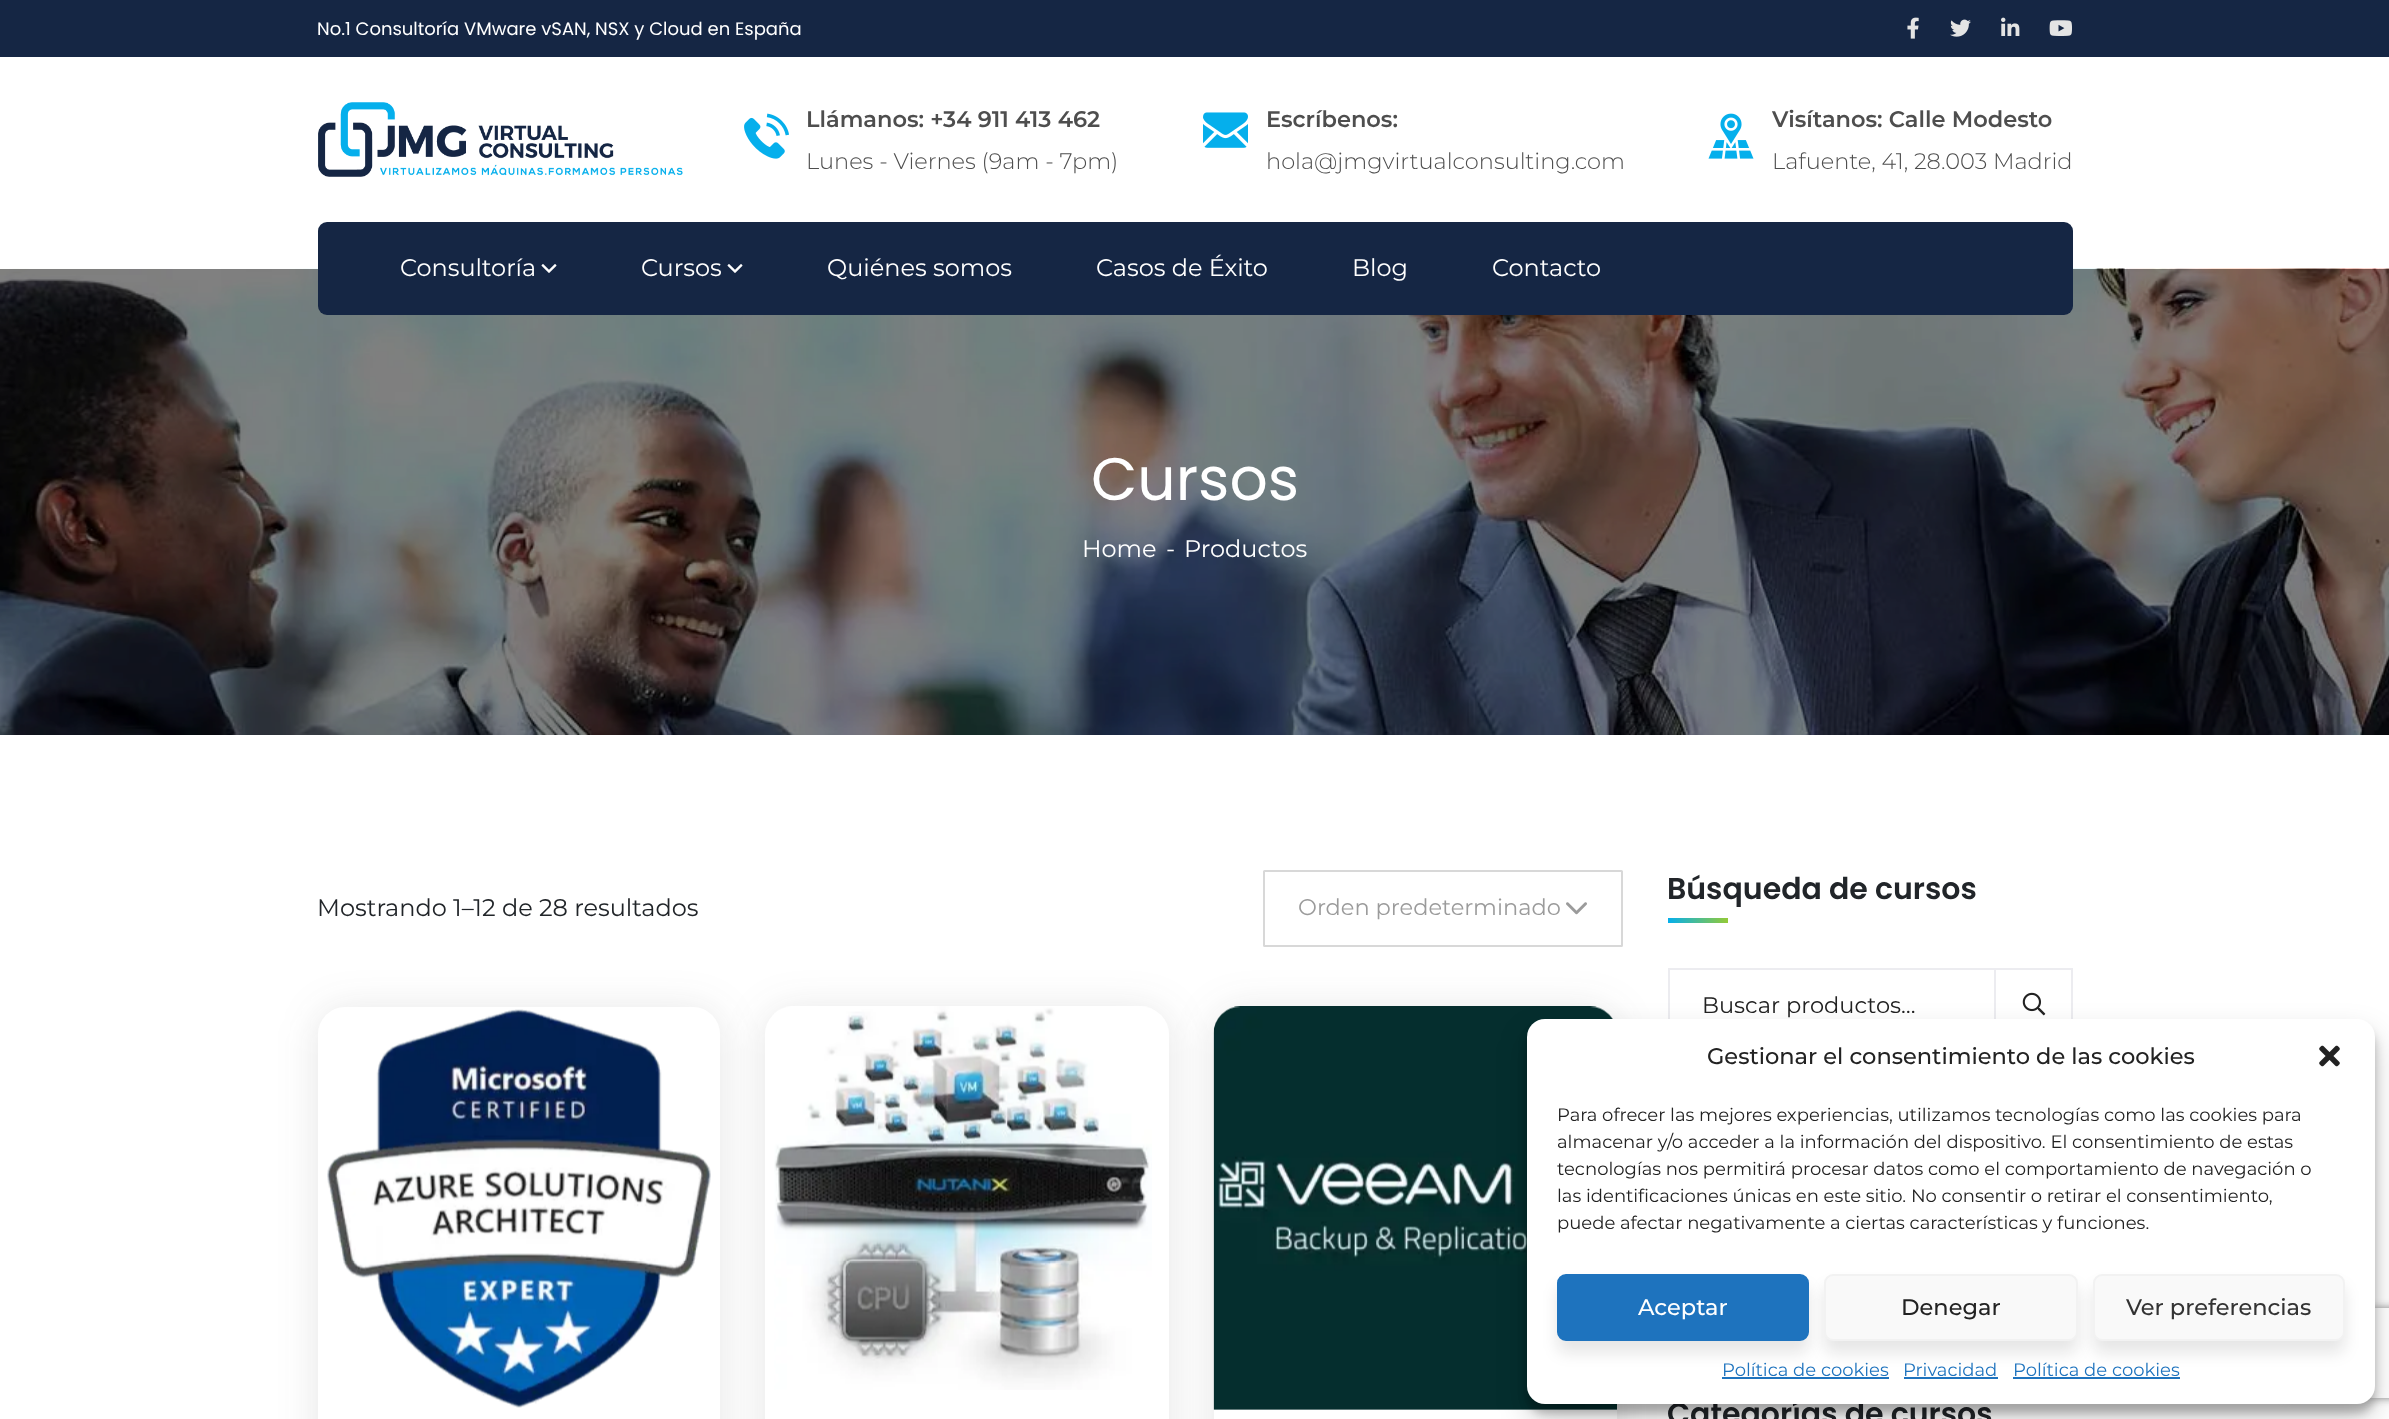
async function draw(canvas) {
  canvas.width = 2389;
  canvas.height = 1419;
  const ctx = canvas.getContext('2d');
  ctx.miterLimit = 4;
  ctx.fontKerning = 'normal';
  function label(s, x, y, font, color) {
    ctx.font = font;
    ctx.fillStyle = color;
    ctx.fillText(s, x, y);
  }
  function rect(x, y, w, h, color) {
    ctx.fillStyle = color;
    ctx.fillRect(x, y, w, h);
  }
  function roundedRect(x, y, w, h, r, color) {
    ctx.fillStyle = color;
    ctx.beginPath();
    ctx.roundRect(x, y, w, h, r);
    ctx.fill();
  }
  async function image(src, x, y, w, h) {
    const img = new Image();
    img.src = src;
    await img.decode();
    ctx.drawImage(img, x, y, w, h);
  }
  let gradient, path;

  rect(0, 0, 2389, 1419, '#fff');
  rect(0, 0, 2389, 57, '#152644');
  label('No.1 Consultoría VMware vSAN, NSX y Cloud en España', 317, 35, '18px Poppins', '#fff');
  await image('assets/img1.png', 1907, 17, 12, 22);
  await image('assets/img2.png', 1950, 19, 21, 18);
  await image('assets/img3.png', 2001, 17, 19, 19);
  await image('assets/img4.png', 2049, 20, 23, 16);
  await image('assets/img5.png', 318, 102, 365, 75);
  await image('assets/img6.png', 744, 113, 45, 46);
  label('Llámanos: +34 911 413 462', 806, 127, '600 22.5px Montserrat', '#4e4e4e');
  label('Lunes - Viernes (9am - 7pm)', 806, 169, '300 22.5px Montserrat', '#4e4e4e');
  await image('assets/img7.png', 1203, 112, 45, 36);
  label('Escríbenos:', 1266, 127, '600 22.5px Montserrat', '#4e4e4e');
  label('hola@jmgvirtualconsulting.com', 1266, 169, '300 22.5px Montserrat', '#4e4e4e');
  await image('assets/img8.png', 1708, 113, 46, 46);
  label('Visítanos: Calle Modesto', 1772, 127, '600 22.5px Montserrat', '#4e4e4e');
  label('Lafuente, 41, 28.003 Madrid', 1772, 169, '300 22.5px Montserrat', '#4e4e4e');
  await image('assets/img10.png', 0, 268, 2389, 467);
  roundedRect(318, 222, 1755, 93, 9, '#152644');
  label('Consultoría', 400, 276, '24px Montserrat', '#fff');
  await image('assets/img9.png', 541, 264, 16, 9);
  label('Cursos', 641, 276, '24px Montserrat', '#fff');
  await image('assets/img9.png', 727, 264, 16, 9);
  label('Quiénes somos', 827, 276, '24px Montserrat', '#fff');
  label('Casos de Éxito', 1096, 276, '24px Montserrat', '#fff');
  label('Blog', 1352, 276, '24px Montserrat', '#fff');
  label('Contacto', 1492, 276, '24px Montserrat', '#fff');
  label('Cursos', 1091, 500, '60px Poppins', '#fff');
  label('Home', 1082, 557, '24px Montserrat', '#fff');
  label('-', 1166, 557, '24px Montserrat', '#fff');
  label('Productos', 1184, 557, '24px Montserrat', '#fff');
  label('Mostrando 1–12 de 28 resultados', 317, 916, '24px Montserrat', '#212529');
  ctx.beginPath();
  ctx.roundRect(1264, 871, 358, 75, 0.5);
  ctx.strokeStyle = '#d8d8d8';
  ctx.lineWidth = 2;
  ctx.stroke();
  label('Orden predeterminado', 1298, 915, '22.5px Montserrat', '#9b9b9b');
  await image('assets/img11.png', 1566, 902, 21, 13);
  ctx.fillStyle = '#36363621';
  ctx.filter = 'blur(20px)';
  ctx.beginPath();
  ctx.roundRect(318, 1010, 402, 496, 27);
  ctx.fill();
  ctx.filter = 'none';
  roundedRect(318, 1007, 402, 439, 27, '#fff');
  await image('assets/img12.png', 327, 1009, 384, 399);
  ctx.fillStyle = '#36363621';
  ctx.filter = 'blur(20px)';
  ctx.beginPath();
  ctx.roundRect(765, 1010, 404, 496, 27);
  ctx.fill();
  ctx.filter = 'none';
  roundedRect(765, 1007, 404, 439, 27, '#fff');
  await image('assets/img13.png', 774, 1006, 378, 384);
  ctx.fillStyle = '#36363621';
  ctx.filter = 'blur(20px)';
  ctx.beginPath();
  ctx.roundRect(1214, 1010, 403, 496, 27);
  ctx.fill();
  ctx.filter = 'none';
  roundedRect(1214, 1007, 403, 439, 27, '#fff');
  await image('assets/img14.png', 1213, 1006, 404, 404);
  label('Búsqueda de cursos', 1667, 899, '600 30px Poppins', '#212529');
  gradient = ctx.createLinearGradient(1668, 920, 1728, 920);
  gradient.addColorStop(0, '#05afec');
  gradient.addColorStop(1, '#94ca36');
  ctx.fillStyle = gradient;
  ctx.fillRect(1668, 918, 60, 5);
  ctx.strokeStyle = '#ececf0';
  ctx.strokeRect(1669, 969, 403, 73);
  label('Buscar productos…', 1702, 1013, '22.5px Montserrat', '#222');
  rect(1994, 968, 2, 51, '#ececf0');
  await image('assets/img15.png', 2022, 992, 24, 24);
  label('Categorías de cursos', 1667, 1424, '600 30px Poppins', '#212529');
  ctx.fillStyle = '#0000003b';
  ctx.filter = 'blur(4.5px)';
  ctx.beginPath();
  ctx.roundRect(1527, 1028, 848, 385, 18);
  ctx.fill();
  ctx.filter = 'none';
  ctx.fillStyle = '#00000030';
  ctx.filter = 'blur(15px)';
  ctx.beginPath();
  ctx.roundRect(1527, 1034, 848, 385, 18);
  ctx.fill();
  ctx.filter = 'none';
  ctx.save();
  path = new Path2D('M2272 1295H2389V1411H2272ZM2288 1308H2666C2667.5 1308 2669 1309.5 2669 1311V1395C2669 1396.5 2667.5 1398 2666 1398H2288C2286.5 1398 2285 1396.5 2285 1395V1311C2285 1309.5 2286.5 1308 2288 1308Z');
  ctx.clip(path, 'evenodd');
  ctx.fillStyle = '#808080';
  ctx.filter = 'blur(4px)';
  ctx.beginPath();
  ctx.roundRect(2285, 1308, 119, 90, 3);
  ctx.fill();
  ctx.filter = 'none';
  ctx.restore();
  roundedRect(1527, 1019, 848, 385, 18, '#fff');
  label('Gestionar el consentimiento de las cookies', 1707, 1064, '500 22.5px Montserrat', '#222');
  await image('assets/img16.png', 2319, 1045, 21, 22);
  label('Para ofrecer las mejores experiencias, utilizamos tecnologías como las cookies para', 1557, 1121, '18px Montserrat', '#222');
  label('almacenar y/o acceder a la información del dispositivo. El consentimiento de estas', 1557, 1148, '18px Montserrat', '#222');
  label('tecnologías nos permitirá procesar datos como el comportamiento de navegación o', 1557, 1175, '18px Montserrat', '#222');
  label('las identificaciones únicas en este sitio. No consentir o retirar el consentimiento,', 1557, 1202, '18px Montserrat', '#222');
  label('puede afectar negativamente a ciertas características y funciones.', 1557, 1229, '18px Montserrat', '#222');
  ctx.fillStyle = '#0c0c0c1a';
  ctx.filter = 'blur(7.5px)';
  ctx.beginPath();
  ctx.roundRect(1557, 1286, 252, 67, 9);
  ctx.fill();
  ctx.filter = 'none';
  ctx.fillStyle = '#1e73be';
  ctx.beginPath();
  ctx.roundRect(1558, 1275, 250, 65, 8);
  ctx.fill();
  ctx.strokeStyle = '#1e73be';
  ctx.stroke();
  label('Aceptar', 1638, 1315, '500 22.5px Montserrat', '#fff');
  ctx.fillStyle = '#0c0c0c1a';
  ctx.filter = 'blur(7.5px)';
  ctx.beginPath();
  ctx.roundRect(1824, 1286, 254, 67, 9);
  ctx.fill();
  ctx.filter = 'none';
  ctx.fillStyle = '#f9f9f9';
  ctx.beginPath();
  ctx.roundRect(1825, 1275, 252, 65, 8);
  ctx.fill();
  ctx.strokeStyle = '#f2f2f2';
  ctx.stroke();
  label('Denegar', 1901, 1315, '500 22.5px Montserrat', '#222');
  ctx.fillStyle = '#0c0c0c1a';
  ctx.filter = 'blur(7.5px)';
  ctx.beginPath();
  ctx.roundRect(2093, 1286, 252, 67, 9);
  ctx.fill();
  ctx.filter = 'none';
  ctx.fillStyle = '#f9f9f9';
  ctx.beginPath();
  ctx.roundRect(2094, 1275, 250, 65, 8);
  ctx.fill();
  ctx.stroke();
  label('Ver preferencias', 2126, 1315, '500 22.5px Montserrat', '#333');
  label('Política de cookies', 1722, 1376, '18px Montserrat', '#1e73be');
  rect(1722, 1377, 167, 2, '#1e73be');
  label('Privacidad', 1903, 1376, '18px Montserrat', '#1e73be');
  rect(1904, 1377, 94, 2, '#1e73be');
  label('Política de cookies', 2013, 1376, '18px Montserrat', '#1e73be');
  rect(2013, 1377, 167, 2, '#1e73be');
}

draw(document.querySelector('canvas'));
